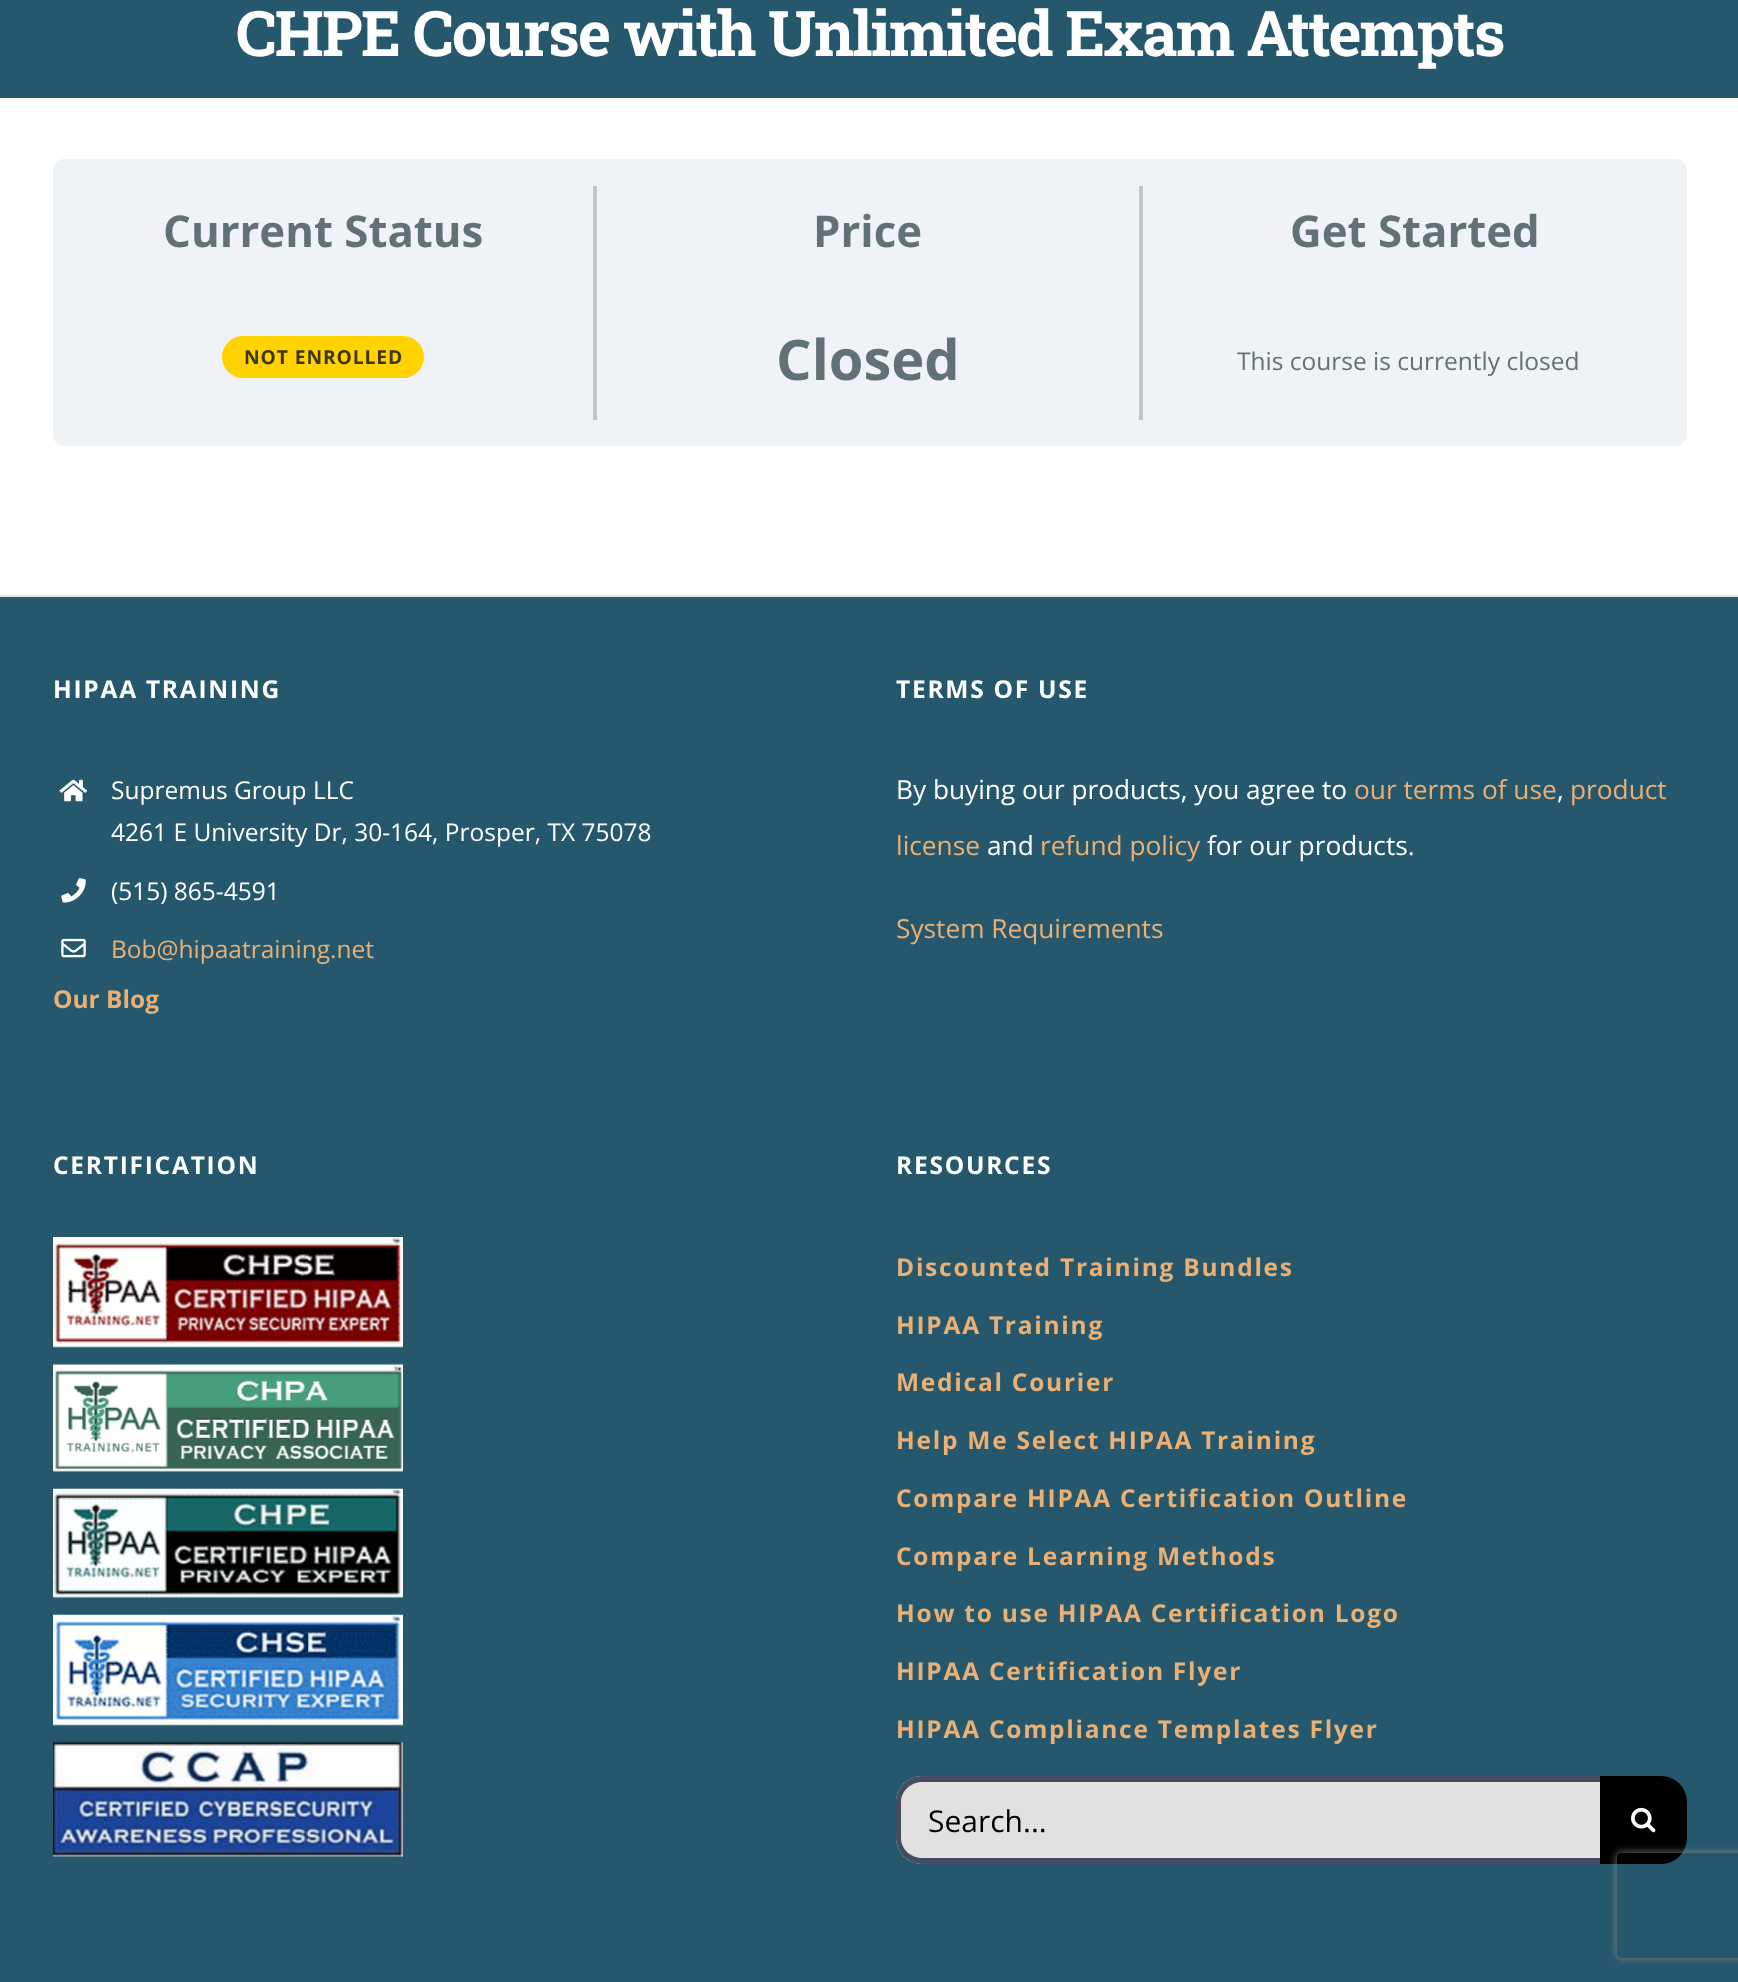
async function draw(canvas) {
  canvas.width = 1738;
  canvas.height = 1982;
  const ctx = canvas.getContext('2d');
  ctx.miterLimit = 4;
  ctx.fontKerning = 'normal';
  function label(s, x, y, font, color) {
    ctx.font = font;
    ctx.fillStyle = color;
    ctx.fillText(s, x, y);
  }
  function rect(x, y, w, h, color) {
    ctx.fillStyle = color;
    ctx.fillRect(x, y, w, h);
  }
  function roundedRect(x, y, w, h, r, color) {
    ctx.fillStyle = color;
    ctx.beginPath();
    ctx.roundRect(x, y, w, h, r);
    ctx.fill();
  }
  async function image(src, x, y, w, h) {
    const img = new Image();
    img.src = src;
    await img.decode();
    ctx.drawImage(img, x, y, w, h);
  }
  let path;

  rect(0, 0, 1738, 1982, '#fff');
  rect(0, 0, 1738, 98, '#25586c');
  ctx.letterSpacing = '-1.75px';
  label('CHPE Course with Unlimited Exam Attempts', 236, 56, 'bold 62.8px Roboto Slab', '#fff');
  roundedRect(53, 159, 1634, 287, 11, '#f0f3f6');
  rect(593, 186, 4, 234, '#bec5cb');
  ctx.letterSpacing = '0px';
  label('Current Status', 163, 247, 'bold 43.75px Open Sans', '#617175');
  roundedRect(222, 336, 202, 42, 21, '#ffd200');
  ctx.letterSpacing = '0.9px';
  label('NOT ENROLLED', 244, 364, 'bold 19.25px Open Sans', '#403500');
  rect(1139, 186, 4, 234, '#bec5cb');
  ctx.letterSpacing = '0px';
  label('Price', 813, 247, 'bold 43.75px Open Sans', '#617175');
  label('Closed', 776, 380, 'bold 56px Open Sans', '#617175');
  label('Get Started', 1290, 247, 'bold 43.75px Open Sans', '#617175');
  label('This course is currently closed', 1237, 370, '24.5px Open Sans', '#617175');
  rect(0, 597, 1738, 1385, '#25586c');
  rect(0, 595, 1738, 2, '#e7e4e2');
  ctx.letterSpacing = '1.75px';
  label('HIPAA TRAINING', 53, 698, 'bold 24.5px Open Sans', '#fff');
  await image('assets/img1.png', 59, 779, 29, 23);
  ctx.letterSpacing = '0px';
  label('Supremus Group LLC', 111, 799, '24.5px Open Sans', '#fff');
  label('4261 E University Dr, 30-164, Prosper, TX 75078', 111, 841, '24.5px Open Sans', '#fff');
  await image('assets/img2.png', 61, 878, 25, 25);
  label('(515) 865-4591', 111, 900, '24.5px Open Sans', '#fff');
  await image('assets/img3.png', 61, 938, 25, 20);
  label('Bob@hipaatraining.net', 111, 958, '24.5px Open Sans', '#ecb074');
  label('Our Blog', 53, 1008, 'bold 24.5px Open Sans', '#ecb074');
  ctx.letterSpacing = '1.75px';
  label('TERMS OF USE', 896, 698, 'bold 24.5px Open Sans', '#fff');
  ctx.letterSpacing = '0px';
  label('By buying our products, you agree to', 896, 799, '26.25px Open Sans', '#fff');
  label('our terms of use', 1354, 799, '26.25px Open Sans', '#ecb074');
  label(',', 1557, 799, '26.25px Open Sans', '#fff');
  label('product', 1570, 799, '26.25px Open Sans', '#ecb074');
  label('license', 896, 855, '26.25px Open Sans', '#ecb074');
  label('and', 987, 855, '26.25px Open Sans', '#fff');
  label('refund policy', 1040, 855, '26.25px Open Sans', '#ecb074');
  label('for our products.', 1207, 855, '26.25px Open Sans', '#fff');
  label('System Requirements', 896, 938, '26.25px Open Sans', '#ecb074');
  ctx.letterSpacing = '1.75px';
  label('CERTIFICATION', 53, 1174, 'bold 24.5px Open Sans', '#fff');
  await image('assets/img4.png', 53, 1237, 350, 111);
  await image('assets/img5.png', 53, 1363, 350, 109);
  await image('assets/img6.png', 53, 1488, 350, 110);
  await image('assets/img7.png', 53, 1614, 350, 112);
  await image('assets/img8.png', 53, 1741, 350, 116);
  label('RESOURCES', 896, 1174, 'bold 24.5px Open Sans', '#fff');
  label('Discounted Training Bundles', 896, 1276, 'bold 24.5px Open Sans', '#ecb074');
  label('HIPAA Training', 896, 1334, 'bold 24.5px Open Sans', '#ecb074');
  label('Medical Courier', 896, 1391, 'bold 24.5px Open Sans', '#ecb074');
  label('Help Me Select HIPAA Training', 896, 1449, 'bold 24.5px Open Sans', '#ecb074');
  label('Compare HIPAA Certification Outline', 896, 1507, 'bold 24.5px Open Sans', '#ecb074');
  label('Compare Learning Methods', 896, 1565, 'bold 24.5px Open Sans', '#ecb074');
  label('How to use HIPAA Certification Logo', 896, 1622, 'bold 24.5px Open Sans', '#ecb074');
  label('HIPAA Certification Flyer', 896, 1680, 'bold 24.5px Open Sans', '#ecb074');
  label('HIPAA Compliance Templates Flyer', 896, 1738, 'bold 24.5px Open Sans', '#ecb074');
  ctx.fillStyle = '#e2e1e0';
  ctx.beginPath();
  ctx.roundRect(896, 1776, 704, 88, [26, 0, 0, 26]);
  ctx.fill();
  ctx.fillStyle = '#444d62';
  path = new Path2D('M922 1776H1600V1864H922C908 1864 896 1852 896 1838V1802C896 1788 908 1776 922 1776ZM922 1782H1600V1858H922C911 1858 901 1849 901 1838V1802C901 1791 911 1782 922 1782Z');
  ctx.fill(path, 'evenodd');
  ctx.letterSpacing = '0px';
  label('Search...', 928, 1832, '30px Open Sans', '#000');
  ctx.beginPath();
  ctx.roundRect(1600, 1776, 87, 88, [0, 26, 26, 0]);
  ctx.fill();
  await image('assets/img9.png', 1631, 1807, 25, 26);
  ctx.save();
  path = new Path2D('M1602 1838H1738V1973H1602ZM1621 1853H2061C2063 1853 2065 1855 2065 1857V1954C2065 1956 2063 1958 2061 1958H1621C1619 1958 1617 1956 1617 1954V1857C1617 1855 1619 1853 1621 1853Z');
  ctx.clip(path, 'evenodd');
  ctx.fillStyle = '#808080';
  ctx.filter = 'blur(4.5px)';
  ctx.beginPath();
  ctx.roundRect(1617, 1853, 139, 105, 4);
  ctx.fill();
  ctx.filter = 'none';
  ctx.restore();
}

draw(document.querySelector('canvas'));
